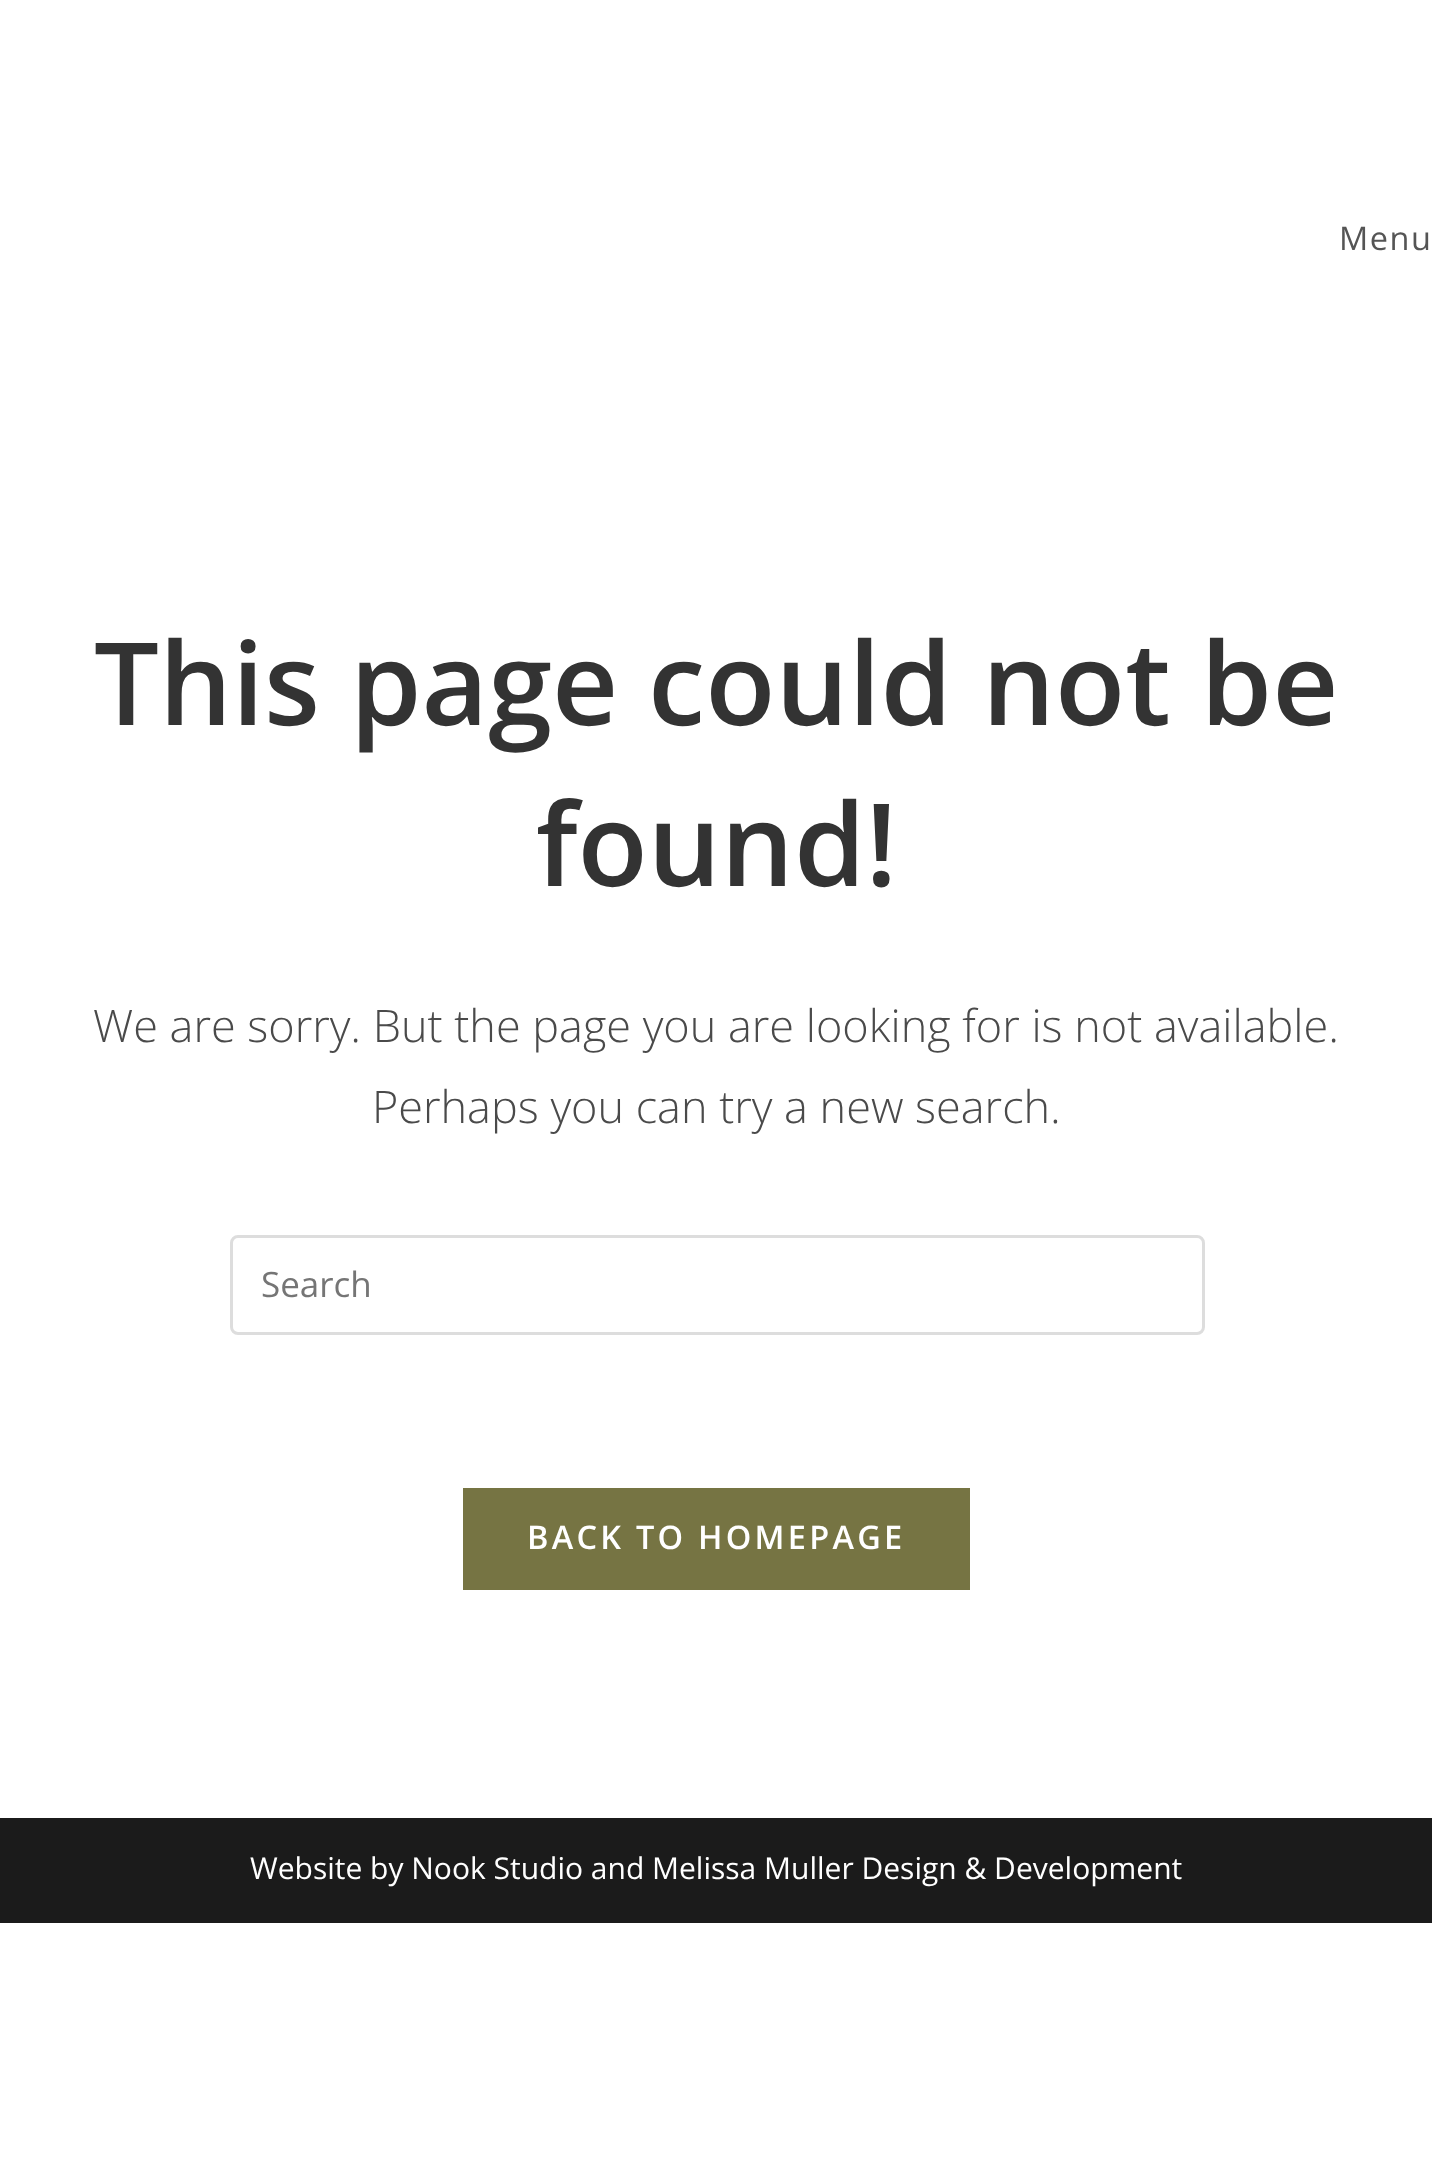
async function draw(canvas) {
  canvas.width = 1432;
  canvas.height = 2161;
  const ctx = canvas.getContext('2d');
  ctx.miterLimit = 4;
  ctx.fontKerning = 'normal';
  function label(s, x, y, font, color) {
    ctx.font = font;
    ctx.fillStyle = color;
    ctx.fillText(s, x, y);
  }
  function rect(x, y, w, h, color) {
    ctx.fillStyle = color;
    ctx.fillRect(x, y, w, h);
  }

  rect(0, 0, 1432, 2161, '#fff');
  ctx.letterSpacing = '1.5px';
  label('Menu', 1339, 250, '32.5px Open Sans', '#555');
  ctx.letterSpacing = '0px';
  label('This page could not be', 94, 725, '600 115px Open Sans', '#333');
  label('found!', 536, 886, '600 115px Open Sans', '#333');
  label('We are sorry. But the page you are looking for is not available.', 93, 1042, '300 45px Open Sans', '#4a4a4a');
  label('Perhaps you can try a new search.', 372, 1123, '300 45px Open Sans', '#4a4a4a');
  ctx.beginPath();
  ctx.roundRect(231.5, 1236.5, 972, 97, 6.5);
  ctx.strokeStyle = '#ddd';
  ctx.lineWidth = 3;
  ctx.stroke();
  label('Search', 261, 1297, '35px Open Sans', '#757575');
  rect(463, 1488, 507, 102, '#767443');
  ctx.letterSpacing = '3.25px';
  label('BACK TO HOMEPAGE', 527, 1549, '600 32.5px Open Sans', '#fff');
  rect(0, 1818, 1432, 105, '#1b1b1b');
  ctx.letterSpacing = '0px';
  label('Website by Nook Studio and Melissa Muller Design & Development', 250, 1879, '30px Open Sans', '#fff');
}

draw(document.querySelector('canvas'));
